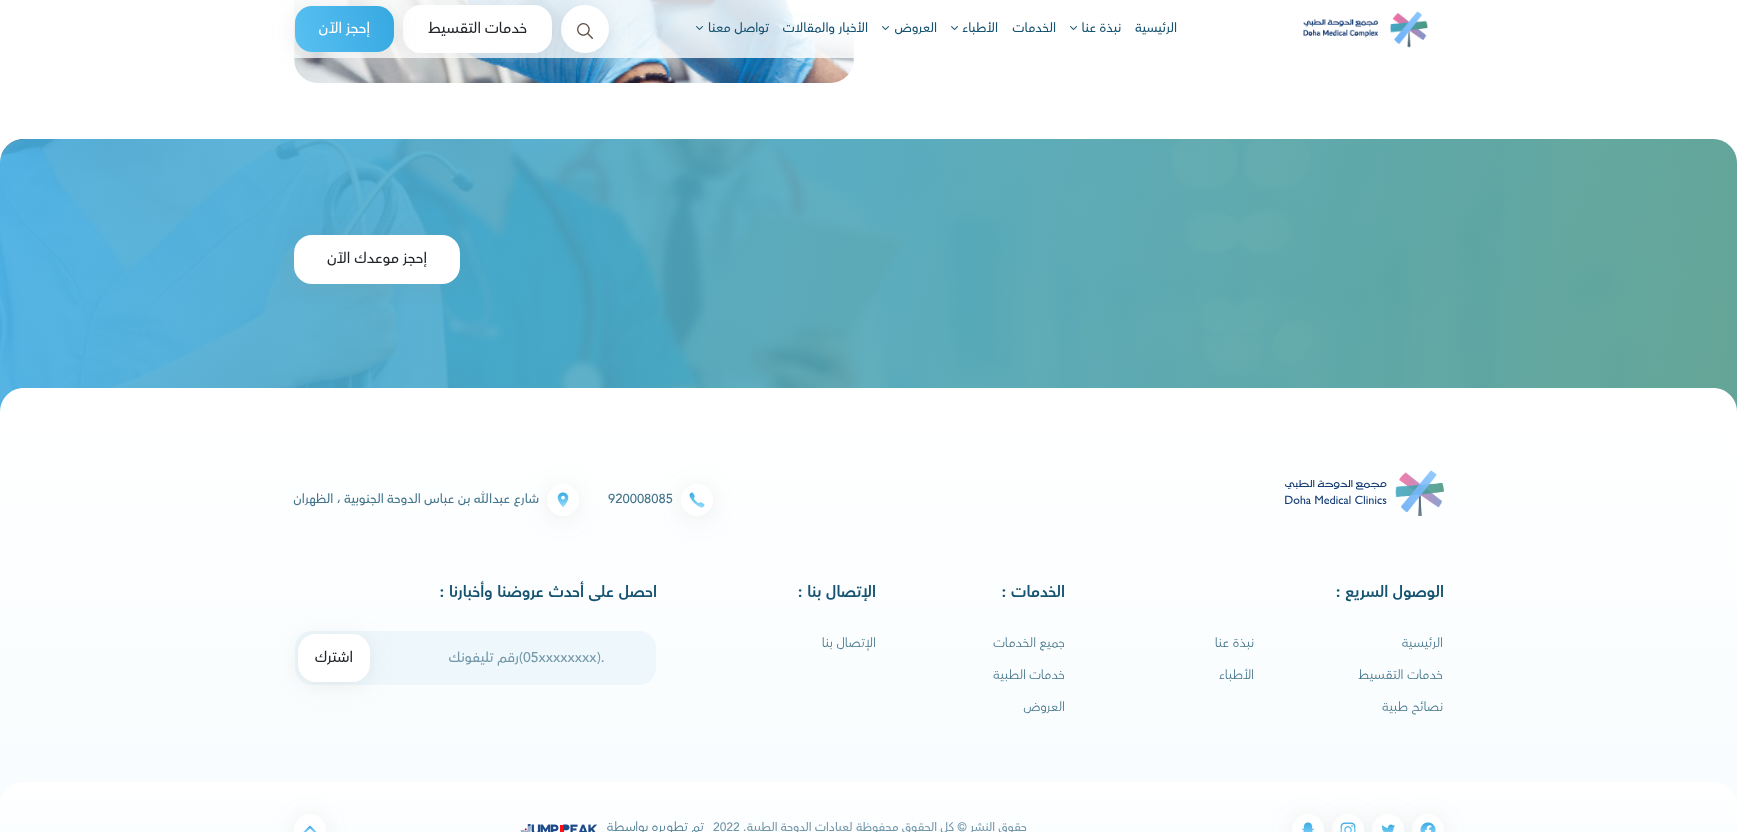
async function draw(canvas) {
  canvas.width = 1737;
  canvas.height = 832;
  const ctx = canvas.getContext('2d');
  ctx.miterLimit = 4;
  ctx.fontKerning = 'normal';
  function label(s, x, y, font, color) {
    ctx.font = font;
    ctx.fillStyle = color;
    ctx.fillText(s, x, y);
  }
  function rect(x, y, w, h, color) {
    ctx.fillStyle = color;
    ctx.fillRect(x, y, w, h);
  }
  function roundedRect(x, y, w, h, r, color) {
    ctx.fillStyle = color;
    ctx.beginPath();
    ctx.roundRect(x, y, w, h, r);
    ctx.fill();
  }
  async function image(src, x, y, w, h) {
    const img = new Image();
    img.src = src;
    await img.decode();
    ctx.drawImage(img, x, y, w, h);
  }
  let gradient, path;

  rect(0, 0, 1737, 832, '#fff');
  await image('assets/img1.png', 294, 0, 560, 83);
  rect(294, 0, 560, 58, '#ffffffcc');
  await image('assets/img2.png', 1303, 11, 125, 37);
  ctx.direction = 'rtl';
  label('الرئيسية', 1177, 32, '500 13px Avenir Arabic', '#165370');
  label('نبذة عنا', 1121, 32, '500 13px Avenir Arabic', '#165370');
  await image('assets/img3.png', 1070, 26, 7, 4);
  label('الخدمات', 1056, 32, '500 13px Avenir Arabic', '#165370');
  label('الأطباء', 998, 32, '500 13px Avenir Arabic', '#165370');
  await image('assets/img3.png', 951, 26, 7, 4);
  label('العروض', 937, 32, '500 13px Avenir Arabic', '#165370');
  await image('assets/img3.png', 882, 26, 7, 4);
  label('الأخبار والمقالات', 868, 32, '500 13px Avenir Arabic', '#165370');
  label('تواصل معنا', 769, 32, '500 13px Avenir Arabic', '#165370');
  await image('assets/img4.png', 696, 26, 7, 4);
  ctx.fillStyle = '#87878724';
  ctx.filter = 'blur(11px)';
  ctx.beginPath();
  ctx.roundRect(561, 8, 48, 48, 24);
  ctx.fill();
  ctx.filter = 'none';
  ctx.fillStyle = '#fff';
  ctx.beginPath();
  ctx.arc(585, 29, 24, 0, 2 * Math.PI);
  ctx.fill();
  ctx.fillStyle = '#87878724';
  ctx.filter = 'blur(11px)';
  ctx.beginPath();
  ctx.roundRect(403, 8, 149, 48, 18);
  ctx.fill();
  ctx.filter = 'none';
  await image('assets/img5.png', 577, 23, 16, 16);
  roundedRect(403, 5, 149, 48, 18, '#fff');
  label('خدمات التقسيط', 527, 33, '500 15px Avenir Arabic', '#212529');
  ctx.fillStyle = '#87878724';
  ctx.filter = 'blur(11px)';
  ctx.beginPath();
  ctx.roundRect(294, 8, 101, 48, 18);
  ctx.fill();
  ctx.filter = 'none';
  gradient = ctx.createLinearGradient(396, 14, 291, 44);
  gradient.addColorStop(0, '#36a9e1');
  gradient.addColorStop(1, '#59c0f2');
  ctx.fillStyle = gradient;
  ctx.beginPath();
  ctx.roundRect(295, 6, 99, 46, 17);
  ctx.fill();
  label('إحجز الآن', 370, 33, '500 15px Avenir Arabic', '#fff');
  await image('assets/img6.png', 0, 139, 1737, 273);
  gradient = ctx.createLinearGradient(14, 78, 1723, 473);
  gradient.addColorStop(0, '#4ab1e4e6');
  gradient.addColorStop(1, '#579d8ce6');
  ctx.fillStyle = gradient;
  ctx.beginPath();
  ctx.roundRect(0, 139, 1737, 273, [24, 24, 0, 0]);
  ctx.fill();
  ctx.fillStyle = '#87878724';
  ctx.filter = 'blur(11px)';
  ctx.beginPath();
  ctx.roundRect(294, 238, 166, 49, 18);
  ctx.fill();
  ctx.filter = 'none';
  roundedRect(294, 235, 166, 49, 18, '#fff');
  label('إحجز موعدك الآن', 427, 263, '500 15px Avenir Arabic', '#212529');
  gradient = ctx.createLinearGradient(869, 388, 869, 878);
  gradient.addColorStop(0, '#fff');
  gradient.addColorStop(1, '#f7fcfe');
  ctx.fillStyle = gradient;
  path = new Path2D('M24 388H1713C1726.5 388 1737 398.5 1737 412V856H0V412C0 398.5 10.5 388 24 388Z');
  ctx.fill(path);
  await image('assets/img7.png', 1285, 470, 159, 46);
  ctx.fillStyle = '#87878724';
  ctx.filter = 'blur(11px)';
  ctx.beginPath();
  ctx.roundRect(681, 487, 32, 32, 16);
  ctx.fill();
  ctx.filter = 'none';
  ctx.fillStyle = '#fff';
  ctx.beginPath();
  ctx.arc(697, 500, 16, 0, 2 * Math.PI);
  ctx.fill();
  await image('assets/img8.png', 689, 492, 16, 16);
  ctx.direction = 'ltr';
  label('920008085', 608, 503, '500 13px Avenir Arabic', '#44758c');
  ctx.fillStyle = '#87878724';
  ctx.filter = 'blur(11px)';
  ctx.beginPath();
  ctx.roundRect(547, 487, 32, 32, 16);
  ctx.fill();
  ctx.filter = 'none';
  ctx.fillStyle = '#fff';
  ctx.beginPath();
  ctx.arc(563, 500, 16, 0, 2 * Math.PI);
  ctx.fill();
  await image('assets/img9.png', 557, 492, 12, 16);
  ctx.direction = 'rtl';
  label('شارع عبدالله بن عباس الدوحة الجنوبية ، الظهران', 539, 503, '500 13px Avenir Arabic', '#44758c');
  label('الوصول السريع :', 1444, 597, '900 16px Avenir Arabic', '#165370');
  label('الرئيسية', 1443, 647, '13px Avenir Arabic', '#44758c');
  label('نبذة عنا', 1254, 647, '13px Avenir Arabic', '#44758c');
  label('خدمات التقسيط', 1443, 679, '13px Avenir Arabic', '#44758c');
  label('الأطباء', 1254, 679, '13px Avenir Arabic', '#44758c');
  label('نصائح طبية', 1443, 711, '13px Avenir Arabic', '#44758c');
  label('الخدمات :', 1065, 597, '900 16px Avenir Arabic', '#165370');
  label('جميع الخدمات', 1065, 647, '13px Avenir Arabic', '#44758c');
  label('خدمات', 1065, 679, '13px Avenir Arabic', '#44758c');
  label('الطبية', 1026, 679, '13px Avenir Arabic', '#44758c');
  label('العروض', 1065, 711, '13px Avenir Arabic', '#44758c');
  label('الإتصال بنا :', 876, 597, '900 16px Avenir Arabic', '#165370');
  label('الإتصال بنا', 876, 647, '13px Avenir Arabic', '#44758c');
  label('احصل على أحدث عروضنا وأخبارنا :', 657, 597, '900 16px Avenir Arabic', '#165370');
  roundedRect(295, 631, 361, 54, 17, '#eef7fb');
  ctx.direction = 'ltr';
  label('(05xxxxxxxx).', 519, 662, '500 14px Avenir Arabic', '#7397a9');
  ctx.direction = 'rtl';
  label('رقم تليفونك', 519, 662, '500 14px Avenir Arabic', '#7397a9');
  ctx.fillStyle = '#87878724';
  ctx.filter = 'blur(11px)';
  ctx.beginPath();
  ctx.roundRect(298, 637, 72, 48, 18);
  ctx.fill();
  ctx.filter = 'none';
  roundedRect(298, 634, 72, 48, 18, '#fff');
  label('اشترك', 353, 662, '500 15px Avenir Arabic', '#212529');
  gradient = ctx.createLinearGradient(869, 782, 869, 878);
  gradient.addColorStop(0, '#fff');
  gradient.addColorStop(1, '#f7fcfe');
  ctx.fillStyle = gradient;
  path = new Path2D('M24 782H1713C1726.5 782 1737 792.5 1737 806V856H0V806C0 792.5 10.5 782 24 782Z');
  ctx.fill(path);
  ctx.fillStyle = '#87878724';
  ctx.filter = 'blur(11px)';
  ctx.beginPath();
  ctx.roundRect(1412, 817, 32, 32, 16);
  ctx.fill();
  ctx.filter = 'none';
  ctx.fillStyle = '#fff';
  ctx.beginPath();
  ctx.arc(1428, 830, 16, 0, 2 * Math.PI);
  ctx.fill();
  ctx.fillStyle = '#87878724';
  ctx.filter = 'blur(11px)';
  ctx.beginPath();
  ctx.roundRect(1372, 817, 32, 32, 16);
  ctx.fill();
  ctx.filter = 'none';
  ctx.fillStyle = '#fff';
  ctx.beginPath();
  ctx.arc(1388, 830, 16, 0, 2 * Math.PI);
  ctx.fill();
  ctx.fillStyle = '#87878724';
  ctx.filter = 'blur(11px)';
  ctx.beginPath();
  ctx.roundRect(1332, 817, 32, 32, 16);
  ctx.fill();
  ctx.filter = 'none';
  ctx.fillStyle = '#fff';
  ctx.beginPath();
  ctx.arc(1348, 830, 16, 0, 2 * Math.PI);
  ctx.fill();
  ctx.fillStyle = '#87878724';
  ctx.filter = 'blur(11px)';
  ctx.beginPath();
  ctx.roundRect(1292, 817, 32, 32, 16);
  ctx.fill();
  ctx.filter = 'none';
  ctx.fillStyle = '#fff';
  ctx.beginPath();
  ctx.arc(1308, 830, 16, 0, 2 * Math.PI);
  ctx.fill();
  await image('assets/img10.png', 1302, 822, 12, 10);
  await image('assets/img11.png', 1340, 822, 16, 10);
  await image('assets/img12.png', 1382, 824, 13, 8);
  await image('assets/img13.png', 1420, 822, 16, 10);
  label('حقوق النشر © كل الحقوق محفوظة لعيادات الدوحة الطبية.', 1027, 831, '500 12px Avenir Arabic', '#7397a9');
  ctx.direction = 'ltr';
  label('2022', 713, 831, '500 12px Avenir Arabic', '#7397a9');
  ctx.direction = 'rtl';
  label('تم تطويره بواسطة', 704, 831, '13px Avenir Arabic', '#44758c');
  await image('assets/img14.png', 520, 824, 78, 8);
  ctx.fillStyle = '#87878724';
  ctx.filter = 'blur(11px)';
  ctx.beginPath();
  ctx.roundRect(294, 817, 32, 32, 16);
  ctx.fill();
  ctx.filter = 'none';
  ctx.fillStyle = '#fff';
  ctx.beginPath();
  ctx.arc(310, 830, 16, 0, 2 * Math.PI);
  ctx.fill();
  await image('assets/img15.png', 303, 825, 14, 7);
}

draw(document.querySelector('canvas'));
